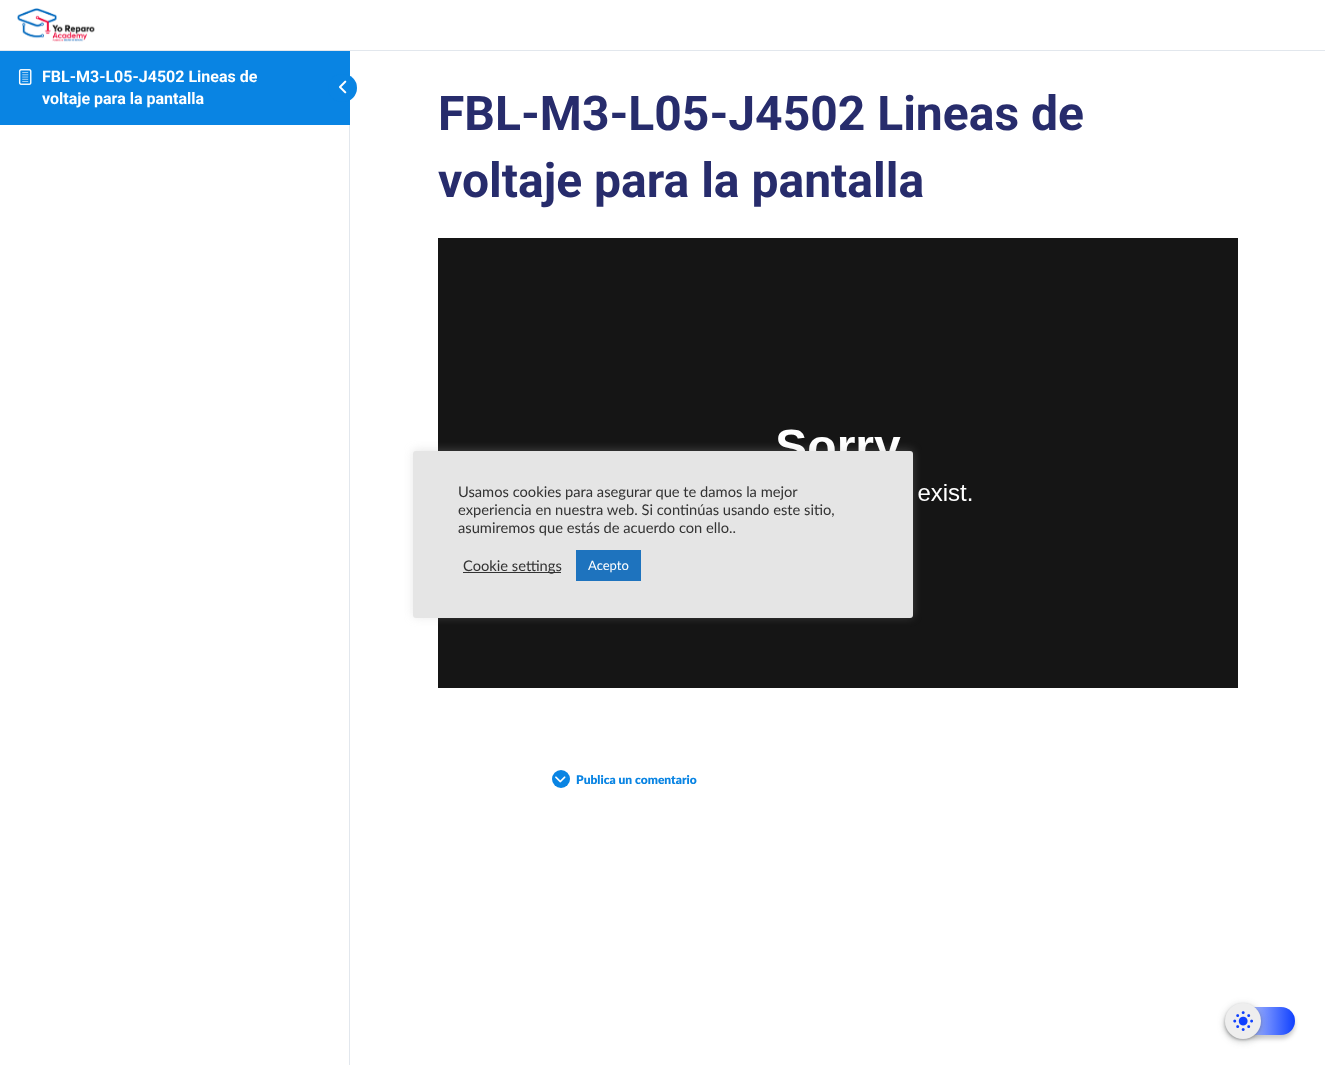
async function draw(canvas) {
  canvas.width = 1325;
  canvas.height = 1065;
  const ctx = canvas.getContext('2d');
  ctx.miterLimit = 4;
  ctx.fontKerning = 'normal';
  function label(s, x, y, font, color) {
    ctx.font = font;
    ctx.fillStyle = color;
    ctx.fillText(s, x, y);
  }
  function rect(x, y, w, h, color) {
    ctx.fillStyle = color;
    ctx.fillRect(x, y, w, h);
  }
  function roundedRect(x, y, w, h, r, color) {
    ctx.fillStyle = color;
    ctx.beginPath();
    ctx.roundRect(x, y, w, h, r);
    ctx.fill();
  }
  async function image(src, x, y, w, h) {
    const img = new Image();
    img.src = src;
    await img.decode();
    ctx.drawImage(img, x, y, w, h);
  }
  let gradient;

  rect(0, 0, 1325, 1065, '#fff');
  rect(349, 125, 1, 940, '#e2e7ed');
  rect(0, 51, 350, 74, '#0984e3');
  await image('assets/img1.png', 18, 69, 14, 16);
  label('FBL-M3-L05-J4502 Lineas de', 42, 82, 'bold 16px Roboto', '#fff');
  label('voltaje para la pantalla', 42, 104, 'bold 16px Roboto', '#fff');
  roundedRect(328, 74, 29, 28, 14, '#0984e3');
  await image('assets/img2.png', 339, 80, 8, 14);
  rect(0, 50, 1325, 1, '#e2e7ed');
  await image('assets/img3.png', 17, 8, 78, 34);
  label('FBL-M3-L05-J4502 Lineas de', 438, 130, 'bold 48px Roboto', '#272c6c');
  label('voltaje para la pantalla', 438, 197, 'bold 48px Roboto', '#272c6c');
  await image('assets/img4.png', 438, 238, 800, 450);
  ctx.fillStyle = '#0984e3';
  ctx.beginPath();
  ctx.arc(561, 779, 9, 0, 2 * Math.PI);
  ctx.fill();
  await image('assets/img5.png', 555, 776, 11, 7);
  label('Publica un comentario', 576, 784, '800 12px Lato', '#0984e3');
  ctx.fillStyle = '#acabab4d';
  ctx.filter = 'blur(5px)';
  ctx.beginPath();
  ctx.roundRect(413, 450, 500, 167, 3);
  ctx.fill();
  ctx.filter = 'none';
  roundedRect(413, 451, 500, 167, 3, '#e5e5e5');
  label('Usamos cookies para asegurar que te damos la mejor', 458, 497, '14.7px Lato', '#333');
  label('experiencia en nuestra web. Si continúas usando este sitio,', 458, 515, '14.7px Lato', '#333');
  label('asumiremos que estás de acuerdo con ello..', 458, 533, '14.7px Lato', '#333');
  rect(463, 572, 98, 1, '#333');
  label('Cookie settings', 463, 571, '14.7px Lato', '#333');
  rect(576, 550, 65, 31, '#1e73be');
  label('Acepto', 588, 570, '13px Lato', '#fff');
  ctx.fillStyle = '#00000033';
  ctx.filter = 'blur(2px)';
  ctx.beginPath();
  ctx.roundRect(1225, 1011, 70, 28, 14);
  ctx.fill();
  ctx.filter = 'none';
  gradient = ctx.createLinearGradient(1225, 1021, 1295, 1021);
  gradient.addColorStop(0, '#fff');
  gradient.addColorStop(1, '#0f40ff');
  ctx.fillStyle = gradient;
  ctx.beginPath();
  ctx.roundRect(1225, 1007, 70, 28, 14);
  ctx.fill();
  ctx.fillStyle = '#3c404326';
  ctx.filter = 'blur(3px)';
  ctx.beginPath();
  ctx.roundRect(1223, 1003, 40, 40, 20);
  ctx.fill();
  ctx.filter = 'none';
  ctx.fillStyle = '#3c40434d';
  ctx.filter = 'blur(1px)';
  ctx.beginPath();
  ctx.roundRect(1225, 1004, 36, 36, 18);
  ctx.fill();
  ctx.filter = 'none';
  ctx.fillStyle = '#eee';
  ctx.beginPath();
  ctx.arc(1243, 1021, 18, 0, 2 * Math.PI);
  ctx.fill();
  await image('assets/img6.png', 1233, 1011, 20, 20);
}

draw(document.querySelector('canvas'));
